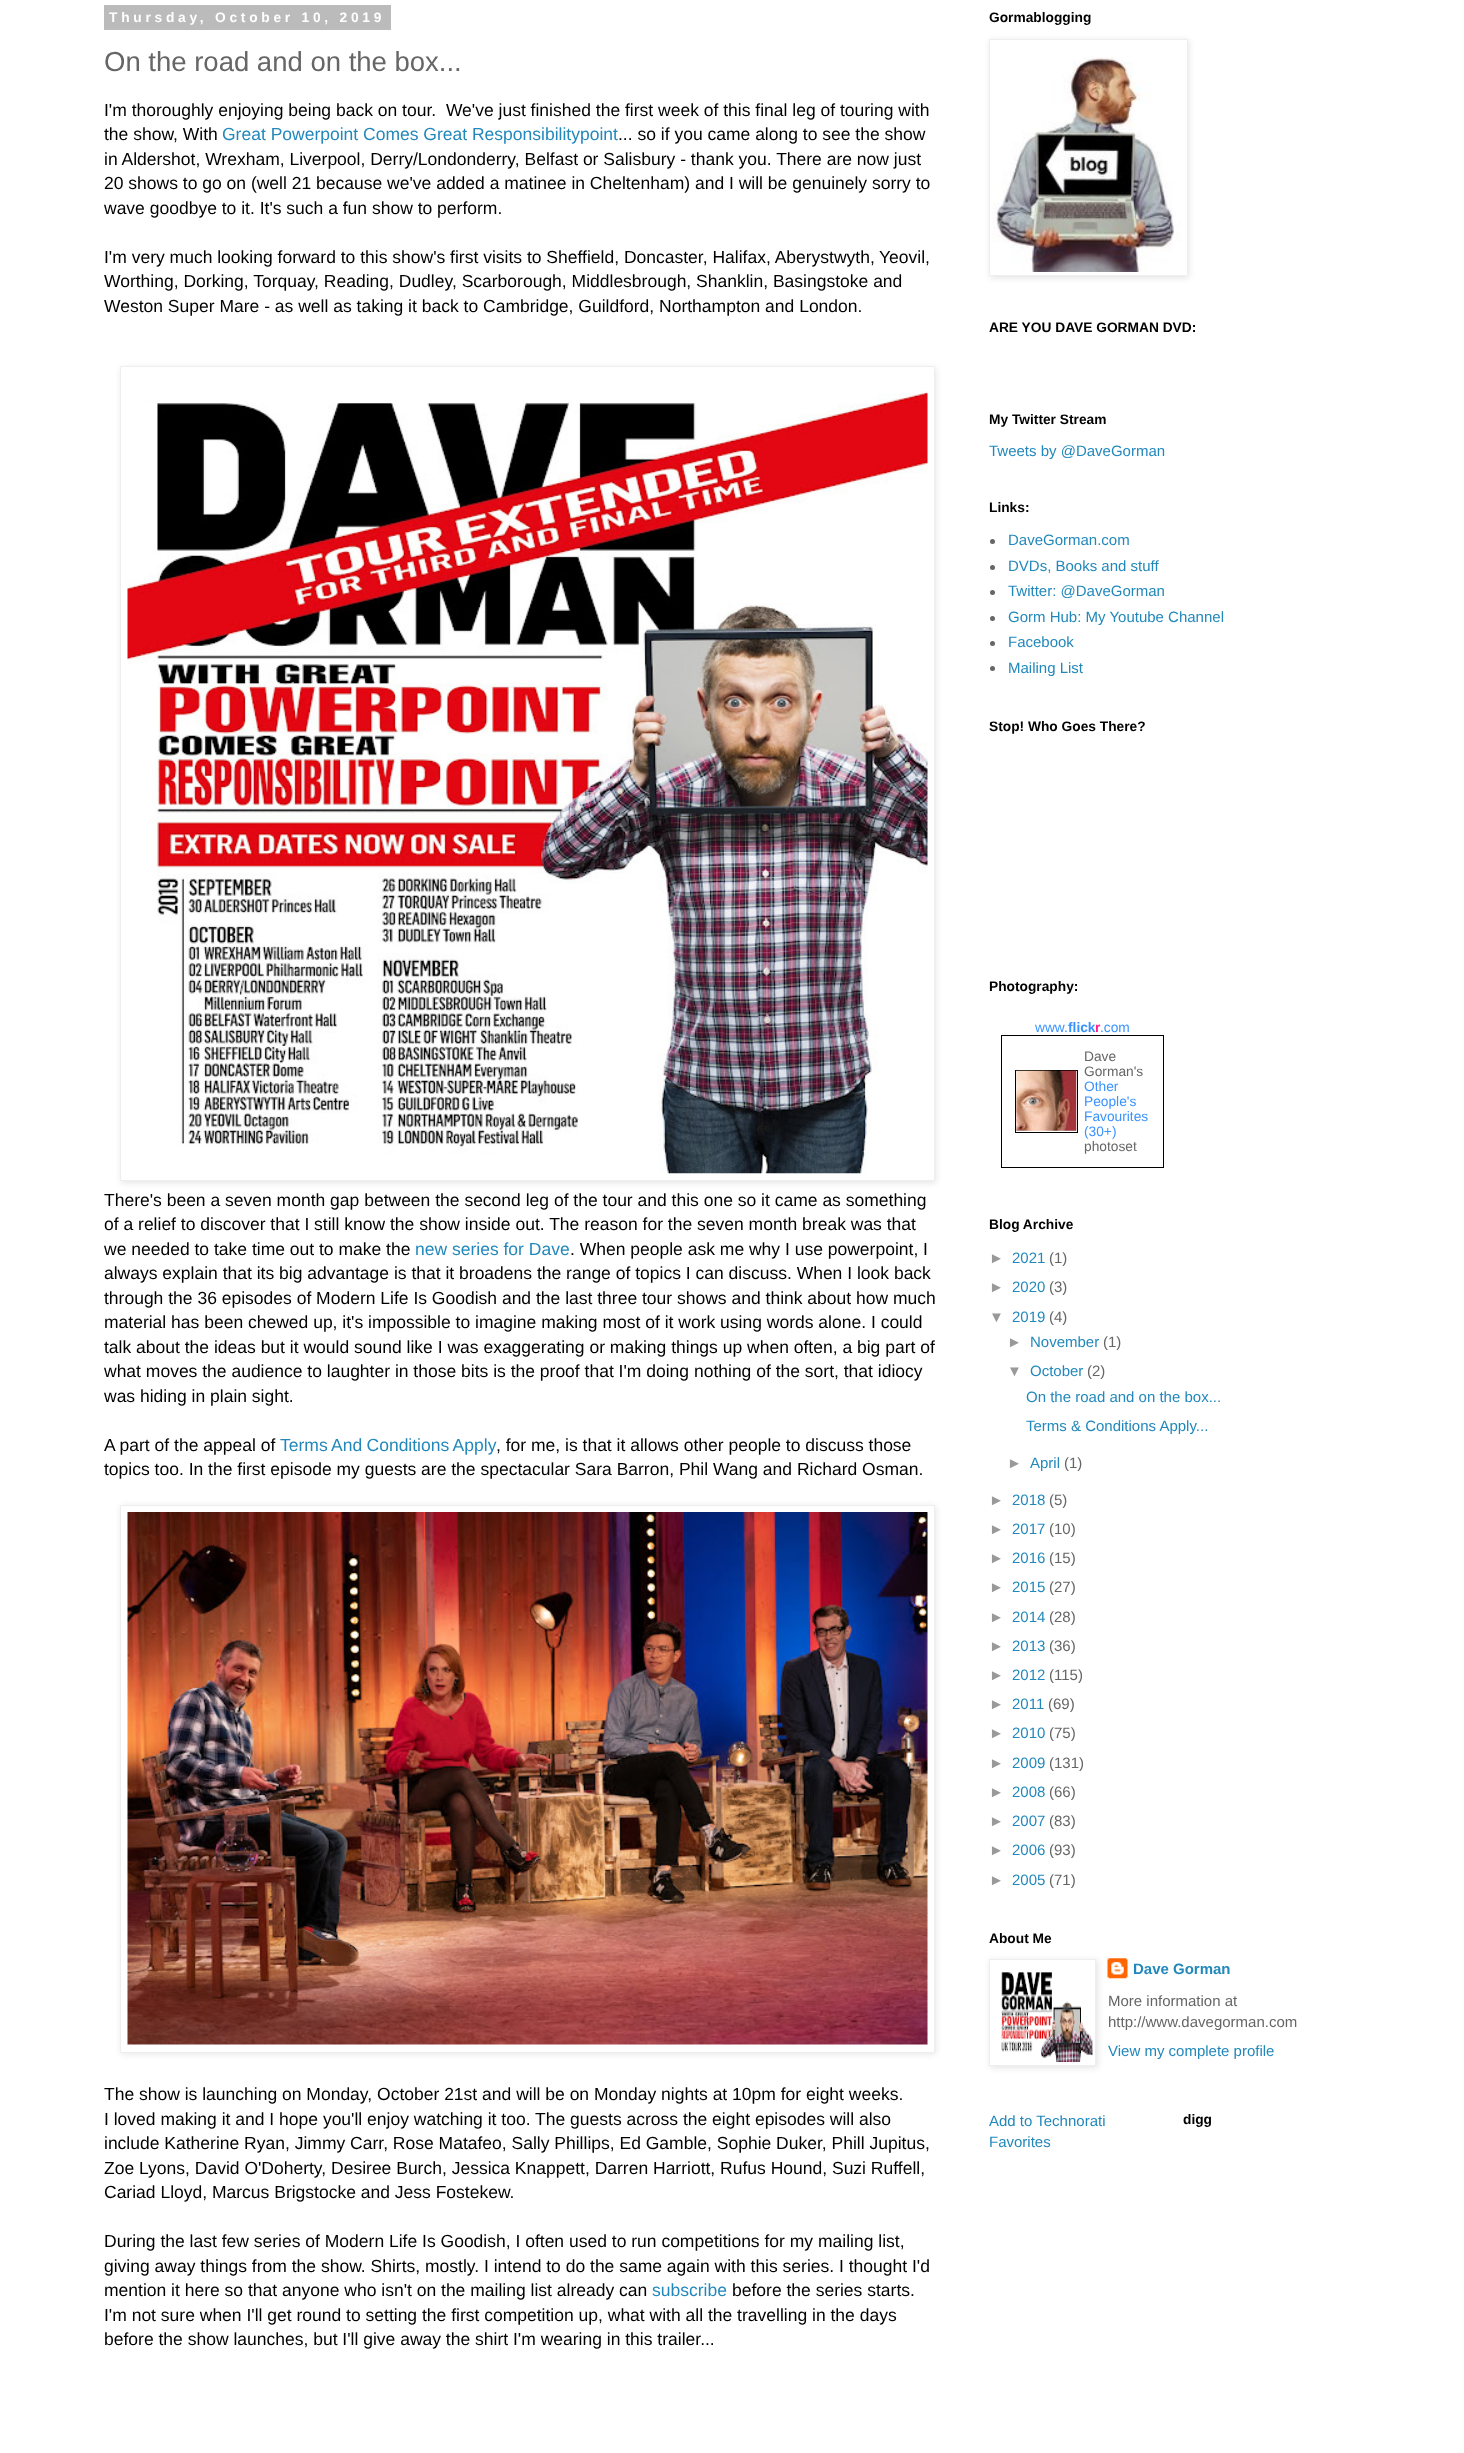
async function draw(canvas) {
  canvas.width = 1464;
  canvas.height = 2453;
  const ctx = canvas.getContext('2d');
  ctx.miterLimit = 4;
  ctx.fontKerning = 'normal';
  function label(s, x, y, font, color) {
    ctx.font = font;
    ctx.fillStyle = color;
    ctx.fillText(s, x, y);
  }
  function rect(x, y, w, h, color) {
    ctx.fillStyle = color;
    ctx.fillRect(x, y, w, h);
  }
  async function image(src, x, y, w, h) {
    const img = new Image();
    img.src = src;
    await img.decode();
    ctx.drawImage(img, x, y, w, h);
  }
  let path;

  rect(0, 0, 1464, 2453, '#fff');
  rect(104, 5, 287, 25, '#bbb');
  ctx.letterSpacing = '3.75px';
  label('Thursday, October 10, 2019', 109, 22, 'bold 13.75px Liberation Sans', '#fff');
  ctx.letterSpacing = '0px';
  label('On the road and on the box...', 104, 71, '27.5px Liberation Sans', '#666');
  label('I\'m thoroughly enjoying being back on tour.  We\'ve just finished the first week of this final leg of touring with', 104, 116, '17.5px Liberation Sans', '#000');
  label('the show, With', 104, 140, '17.5px Liberation Sans', '#000');
  label('Great Powerpoint Comes Great Responsibilitypoint', 222, 140, '17.5px Liberation Sans', '#28b');
  label('... so if you came along to see the show', 618, 140, '17.5px Liberation Sans', '#000');
  label('in Aldershot, Wrexham, Liverpool, Derry/Londonderry, Belfast or Salisbury - thank you. There are now just', 104, 165, '17.5px Liberation Sans', '#000');
  label('20 shows to go on (well 21 because we\'ve added a matinee in Cheltenham) and I will be genuinely sorry to', 104, 189, '17.5px Liberation Sans', '#000');
  label('wave goodbye to it. It\'s such a fun show to perform.', 104, 214, '17.5px Liberation Sans', '#000');
  label('I\'m very much looking forward to this show\'s first visits to Sheffield, Doncaster, Halifax, Aberystwyth,', 104, 263, '17.5px Liberation Sans', '#000');
  label('Yeovil,', 879, 263, '17.5px Liberation Sans', '#000');
  label('Worthing, Dorking, Torquay, Reading, Dudley, Scarborough, Middlesbrough, Shanklin, Basingstoke and', 104, 287, '17.5px Liberation Sans', '#000');
  label('Weston Super Mare - as well as taking it back to Cambridge, Guildford, Northampton and London.', 104, 312, '17.5px Liberation Sans', '#000');
  ctx.fillStyle = '#0000001a';
  ctx.filter = 'blur(3px)';
  ctx.beginPath();
  ctx.rect(121, 368, 815, 815);
  ctx.fill();
  ctx.filter = 'none';
  ctx.fillStyle = '#fff';
  ctx.beginPath();
  ctx.rect(120.5, 366.5, 814, 814);
  ctx.fill();
  ctx.strokeStyle = '#eee';
  ctx.stroke();
  await image('assets/img1.png', 127, 391, 801, 783);
  label('There\'s been a seven month gap between the second leg of the tour and this one so it came as something', 104, 1206, '17.5px Liberation Sans', '#000');
  label('of a relief to discover that I still know the show inside out. The reason for the seven month break was that', 104, 1230, '17.5px Liberation Sans', '#000');
  label('we needed to take time out to make the', 104, 1255, '17.5px Liberation Sans', '#000');
  label('new series for Dave', 415, 1255, '17.5px Liberation Sans', '#28b');
  label('. When people ask me why I use powerpoint, I', 570, 1255, '17.5px Liberation Sans', '#000');
  label('always explain that its big advantage is that it broadens the range of topics I can discuss. When I look back', 104, 1279, '17.5px Liberation Sans', '#000');
  label('through the 36 episodes of Modern Life Is Goodish and the last three tour shows and think about how much', 104, 1304, '17.5px Liberation Sans', '#000');
  label('material has been chewed up, it\'s impossible to imagine making most of it work using words alone. I could', 104, 1328, '17.5px Liberation Sans', '#000');
  label('talk about the ideas but it would sound like I was exaggerating or making things up when often, a big part of', 104, 1353, '17.5px Liberation Sans', '#000');
  label('what moves the audience to laughter in those bits is the proof that I\'m doing nothing of the sort, that idiocy', 104, 1377, '17.5px Liberation Sans', '#000');
  label('was hiding in plain sight.', 104, 1402, '17.5px Liberation Sans', '#000');
  label('A part of the appeal of', 104, 1451, '17.5px Liberation Sans', '#000');
  ctx.wordSpacing = '-0.5px';
  label('Terms And Conditions Apply', 280, 1451, '17.5px Liberation Sans', '#28b');
  ctx.wordSpacing = '0px';
  label(', for me, is that it allows other people to discuss those', 496, 1451, '17.5px Liberation Sans', '#000');
  label('topics too. In the first episode my guests are the spectacular Sara Barron, Phil Wang and Richard Osman.', 104, 1475, '17.5px Liberation Sans', '#000');
  ctx.fillStyle = '#0000001a';
  ctx.filter = 'blur(3px)';
  ctx.beginPath();
  ctx.rect(121, 1506, 815, 548);
  ctx.fill();
  ctx.filter = 'none';
  ctx.fillStyle = '#fff';
  ctx.beginPath();
  ctx.rect(120.5, 1505.5, 814, 547);
  ctx.fill();
  ctx.stroke();
  await image('assets/img2.png', 127, 1512, 801, 533);
  label('The show is launching on Monday, October 21st and will be on Monday nights at 10pm for eight weeks.', 104, 2100, '17.5px Liberation Sans', '#000');
  label('I loved making it and I hope you\'ll enjoy watching it too. The guests across the eight episodes will also', 104, 2125, '17.5px Liberation Sans', '#000');
  label('include Katherine Ryan, Jimmy Carr, Rose Matafeo, Sally Phillips, Ed Gamble, Sophie Duker, Phill Jupitus,', 104, 2149, '17.5px Liberation Sans', '#000');
  label('Zoe Lyons, David O\'Doherty, Desiree Burch, Jessica Knappett, Darren Harriott, Rufus Hound, Suzi Ruffell,', 104, 2174, '17.5px Liberation Sans', '#000');
  label('Cariad Lloyd, Marcus Brigstocke and Jess Fostekew.', 104, 2198, '17.5px Liberation Sans', '#000');
  label('During the last few series of Modern Life Is Goodish, I often used to run competitions for my mailing list,', 104, 2247, '17.5px Liberation Sans', '#000');
  label('giving away things from the show. Shirts, mostly. I intend to do the same again with this series. I thought I\'d', 104, 2272, '17.5px Liberation Sans', '#000');
  label('mention it here so that anyone who isn\'t on the mailing list already can', 104, 2296, '17.5px Liberation Sans', '#000');
  label('subscribe', 652, 2296, '17.5px Liberation Sans', '#28b');
  label('before the series starts.', 732, 2296, '17.5px Liberation Sans', '#000');
  label('I\'m not sure when I\'ll get round to setting the first competition up, what with all the travelling in the days', 104, 2321, '17.5px Liberation Sans', '#000');
  label('before the show launches, but I\'ll give away the shirt I\'m wearing in this trailer...', 104, 2345, '17.5px Liberation Sans', '#000');
  label('Gormablogging', 989, 22, 'bold 13.75px Liberation Sans', '#000');
  ctx.fillStyle = '#0000001a';
  ctx.filter = 'blur(3px)';
  ctx.beginPath();
  ctx.rect(990, 40, 199, 238);
  ctx.fill();
  ctx.filter = 'none';
  ctx.fillStyle = '#fff';
  ctx.beginPath();
  ctx.rect(989.5, 39.5, 198, 236);
  ctx.fill();
  ctx.stroke();
  await image('assets/img3.png', 992, 57, 189, 215);
  label('ARE YOU DAVE GORMAN DVD:', 989, 332, 'bold 13.75px Liberation Sans', '#000');
  label('My Twitter Stream', 989, 424, 'bold 13.75px Liberation Sans', '#000');
  label('Tweets by @DaveGorman', 989, 456, '15px Liberation Sans', '#28b');
  label('Links:', 989, 512, 'bold 13.75px Liberation Sans', '#000');
  ctx.fillStyle = '#666';
  ctx.beginPath();
  ctx.arc(992.5, 541.5, 2.5, 0, 2 * Math.PI);
  ctx.fill();
  label('DaveGorman.com', 1008, 545, '15px Liberation Sans', '#28b');
  ctx.fillStyle = '#666';
  ctx.beginPath();
  ctx.arc(992.5, 567.5, 2.5, 0, 2 * Math.PI);
  ctx.fill();
  label('DVDs, Books and stuff', 1008, 571, '15px Liberation Sans', '#28b');
  ctx.fillStyle = '#666';
  ctx.beginPath();
  ctx.arc(992.5, 592.5, 2.5, 0, 2 * Math.PI);
  ctx.fill();
  label('Twitter: @DaveGorman', 1008, 596, '15px Liberation Sans', '#28b');
  ctx.fillStyle = '#666';
  ctx.beginPath();
  ctx.arc(992.5, 618.5, 2.5, 0, 2 * Math.PI);
  ctx.fill();
  label('Gorm Hub: My Youtube Channel', 1008, 622, '15px Liberation Sans', '#28b');
  ctx.fillStyle = '#666';
  ctx.beginPath();
  ctx.arc(992.5, 643.5, 2.5, 0, 2 * Math.PI);
  ctx.fill();
  label('Facebook', 1008, 647, '15px Liberation Sans', '#28b');
  ctx.fillStyle = '#666';
  ctx.beginPath();
  ctx.arc(992.5, 668.5, 2.5, 0, 2 * Math.PI);
  ctx.fill();
  label('Mailing List', 1008, 673, '15px Liberation Sans', '#28b');
  label('Stop! Who Goes There?', 989, 731, 'bold 13.75px Liberation Sans', '#000');
  label('Photography:', 989, 991, 'bold 13.75px Liberation Sans', '#000');
  label('www.', 1035, 1032, '13.75px Liberation Sans', '#3993ff');
  label('flick', 1068, 1032, 'bold 13.75px Liberation Sans', '#3993ff');
  label('r', 1095, 1032, 'bold 13.75px Liberation Sans', '#ff1c92');
  label('.com', 1100, 1032, '13.75px Liberation Sans', '#3993ff');
  ctx.strokeStyle = '#000';
  ctx.strokeRect(1001.5, 1035.5, 162, 132);
  ctx.strokeRect(1015.5, 1070.5, 62, 62);
  await image('assets/img4.png', 1016, 1070, 61, 61);
  label('Dave', 1084, 1061, '13.75px Liberation Sans', '#666');
  label('Gorman\'s', 1084, 1076, '13.75px Liberation Sans', '#666');
  label('Other', 1084, 1091, '13.75px Liberation Sans', '#3993ff');
  label('People\'s', 1084, 1106, '13.75px Liberation Sans', '#3993ff');
  label('Favourites', 1084, 1121, '13.75px Liberation Sans', '#3993ff');
  label('(30+)', 1084, 1136, '13.75px Liberation Sans', '#3993ff');
  label('photoset', 1084, 1151, '13.75px Liberation Sans', '#666');
  label('Blog Archive', 989, 1229, 'bold 13.75px Liberation Sans', '#000');
  label('►', 989, 1263, '15px Liberation Sans', '#999');
  label('2021', 1012, 1263, '15px Liberation Sans', '#28b');
  label('(1)', 1049, 1263, '15px Liberation Sans', '#666');
  label('►', 989, 1292, '15px Liberation Sans', '#999');
  label('2020', 1012, 1292, '15px Liberation Sans', '#28b');
  label('(3)', 1049, 1292, '15px Liberation Sans', '#666');
  label('▼', 989, 1322, '15px Liberation Sans', '#999');
  label('2019', 1012, 1322, '15px Liberation Sans', '#28b');
  label('(4)', 1049, 1322, '15px Liberation Sans', '#666');
  label('►', 1007, 1347, '15px Liberation Sans', '#999');
  label('November', 1030, 1347, '15px Liberation Sans', '#28b');
  label('(1)', 1103, 1347, '15px Liberation Sans', '#666');
  label('▼', 1007, 1376, '15px Liberation Sans', '#999');
  label('October', 1030, 1376, '15px Liberation Sans', '#28b');
  label('(2)', 1087, 1376, '15px Liberation Sans', '#666');
  label('On the road and on the box...', 1026, 1402, '15px Liberation Sans', '#28b');
  label('Terms & Conditions Apply...', 1026, 1431, '15px Liberation Sans', '#28b');
  label('►', 1007, 1468, '15px Liberation Sans', '#999');
  label('April', 1030, 1468, '15px Liberation Sans', '#28b');
  label('(1)', 1064, 1468, '15px Liberation Sans', '#666');
  label('►', 989, 1505, '15px Liberation Sans', '#999');
  label('2018', 1012, 1505, '15px Liberation Sans', '#28b');
  label('(5)', 1049, 1505, '15px Liberation Sans', '#666');
  label('►', 989, 1534, '15px Liberation Sans', '#999');
  label('2017', 1012, 1534, '15px Liberation Sans', '#28b');
  label('(10)', 1049, 1534, '15px Liberation Sans', '#666');
  label('►', 989, 1563, '15px Liberation Sans', '#999');
  label('2016', 1012, 1563, '15px Liberation Sans', '#28b');
  label('(15)', 1049, 1563, '15px Liberation Sans', '#666');
  label('►', 989, 1592, '15px Liberation Sans', '#999');
  label('2015', 1012, 1592, '15px Liberation Sans', '#28b');
  label('(27)', 1049, 1592, '15px Liberation Sans', '#666');
  label('►', 989, 1622, '15px Liberation Sans', '#999');
  label('2014', 1012, 1622, '15px Liberation Sans', '#28b');
  label('(28)', 1049, 1622, '15px Liberation Sans', '#666');
  label('►', 989, 1651, '15px Liberation Sans', '#999');
  label('2013', 1012, 1651, '15px Liberation Sans', '#28b');
  label('(36)', 1049, 1651, '15px Liberation Sans', '#666');
  label('►', 989, 1680, '15px Liberation Sans', '#999');
  label('2012', 1012, 1680, '15px Liberation Sans', '#28b');
  label('(115)', 1049, 1680, '15px Liberation Sans', '#666');
  label('►', 989, 1709, '15px Liberation Sans', '#999');
  label('2011', 1012, 1709, '15px Liberation Sans', '#28b');
  label('(69)', 1048, 1709, '15px Liberation Sans', '#666');
  label('►', 989, 1738, '15px Liberation Sans', '#999');
  label('2010', 1012, 1738, '15px Liberation Sans', '#28b');
  label('(75)', 1049, 1738, '15px Liberation Sans', '#666');
  label('►', 989, 1768, '15px Liberation Sans', '#999');
  label('2009', 1012, 1768, '15px Liberation Sans', '#28b');
  label('(131)', 1049, 1768, '15px Liberation Sans', '#666');
  label('►', 989, 1797, '15px Liberation Sans', '#999');
  label('2008', 1012, 1797, '15px Liberation Sans', '#28b');
  label('(66)', 1049, 1797, '15px Liberation Sans', '#666');
  label('►', 989, 1826, '15px Liberation Sans', '#999');
  label('2007', 1012, 1826, '15px Liberation Sans', '#28b');
  label('(83)', 1049, 1826, '15px Liberation Sans', '#666');
  label('►', 989, 1855, '15px Liberation Sans', '#999');
  label('2006', 1012, 1855, '15px Liberation Sans', '#28b');
  label('(93)', 1049, 1855, '15px Liberation Sans', '#666');
  label('►', 989, 1885, '15px Liberation Sans', '#999');
  label('2005', 1012, 1885, '15px Liberation Sans', '#28b');
  label('(71)', 1049, 1885, '15px Liberation Sans', '#666');
  label('About Me', 989, 1943, 'bold 13.75px Liberation Sans', '#000');
  await image('assets/img6.png', 1107, 1958, 21, 21);
  ctx.save();
  path = new Path2D('M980 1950H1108V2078H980ZM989 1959H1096V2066H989Z');
  ctx.clip(path, 'evenodd');
  ctx.fillStyle = '#0000001a';
  ctx.filter = 'blur(3px)';
  ctx.beginPath();
  ctx.rect(990, 1960, 108, 108);
  ctx.fill();
  ctx.filter = 'none';
  ctx.restore();
  ctx.strokeStyle = '#eee';
  ctx.strokeRect(989.5, 1959.5, 106, 106);
  await image('assets/img5.png', 1001, 1972, 92, 90);
  label('Dave Gorman', 1133, 1974, 'bold 15px Liberation Sans', '#28b');
  label('More information at', 1108, 2006, '15px Liberation Sans', '#666');
  label('http://www.davegorman.com', 1108, 2027, '15px Liberation Sans', '#666');
  label('View my complete profile', 1108, 2056, '15px Liberation Sans', '#28b');
  label('Add to Technorati', 989, 2126, '15px Liberation Sans', '#28b');
  label('Favorites', 989, 2147, '15px Liberation Sans', '#28b');
  label('digg', 1183, 2124, 'bold 13.75px Liberation Sans', '#000');
}

draw(document.querySelector('canvas'));
